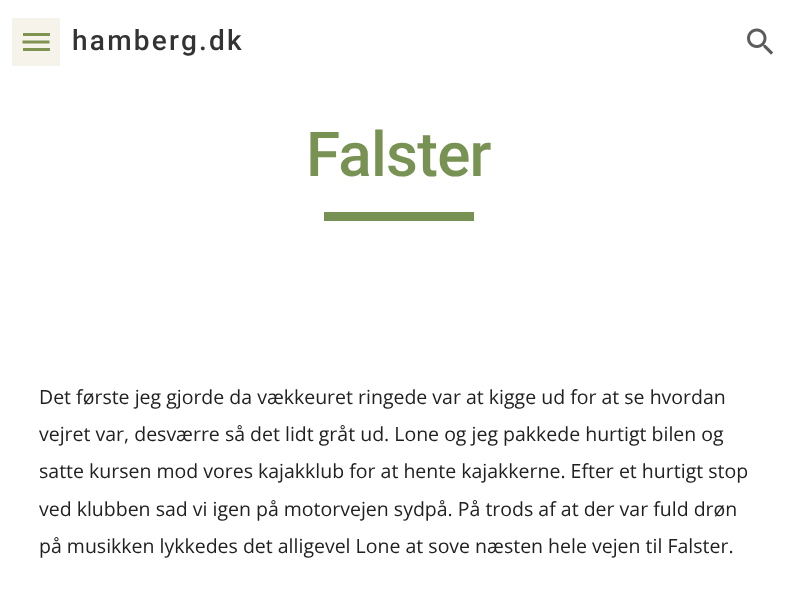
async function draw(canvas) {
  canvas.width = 796;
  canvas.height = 610;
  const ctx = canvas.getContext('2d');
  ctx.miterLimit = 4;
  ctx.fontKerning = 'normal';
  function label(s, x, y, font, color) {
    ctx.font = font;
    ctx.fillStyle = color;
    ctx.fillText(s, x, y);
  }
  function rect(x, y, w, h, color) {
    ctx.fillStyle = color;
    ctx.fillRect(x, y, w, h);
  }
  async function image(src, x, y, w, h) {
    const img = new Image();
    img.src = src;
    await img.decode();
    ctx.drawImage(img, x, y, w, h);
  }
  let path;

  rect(0, 0, 796, 610, '#fff');
  rect(23, 33, 27, 3, '#789254');
  path = new Path2D('M22.5 42H49.5');
  ctx.strokeStyle = '#789254';
  ctx.lineWidth = 3;
  ctx.stroke(path);
  rect(23, 48, 27, 3, '#789254');
  rect(12, 18, 48, 48, '#b799511f');
  ctx.letterSpacing = '2.25px';
  label('hamberg.dk', 72, 50, '500 28px Roboto', '#333');
  await image('assets/img1.png', 747, 28, 27, 27);
  ctx.letterSpacing = '-0.75px';
  label('Falster', 306, 176, '500 62px Roboto', '#789254');
  rect(324, 212, 150, 9, '#789254');
  ctx.letterSpacing = '0px';
  label('Det første jeg gjorde da vækkeuret ringede var at kigge ud for at se hvordan', 39, 404, '19.5px Open Sans', '#212121');
  label('vejret var, desværre så det lidt gråt ud. Lone og jeg pakkede hurtigt bilen og', 39, 441, '19.5px Open Sans', '#212121');
  label('satte kursen mod vores kajakklub for at hente kajakkerne. Efter et hurtigt stop', 39, 478, '19.5px Open Sans', '#212121');
  label('ved klubben sad vi igen på motorvejen sydpå. På trods af at der var fuld drøn', 39, 516, '19.5px Open Sans', '#212121');
  label('på musikken lykkedes det alligevel Lone at sove næsten hele vejen til Falster.', 39, 553, '19.5px Open Sans', '#212121');
}

draw(document.querySelector('canvas'));
